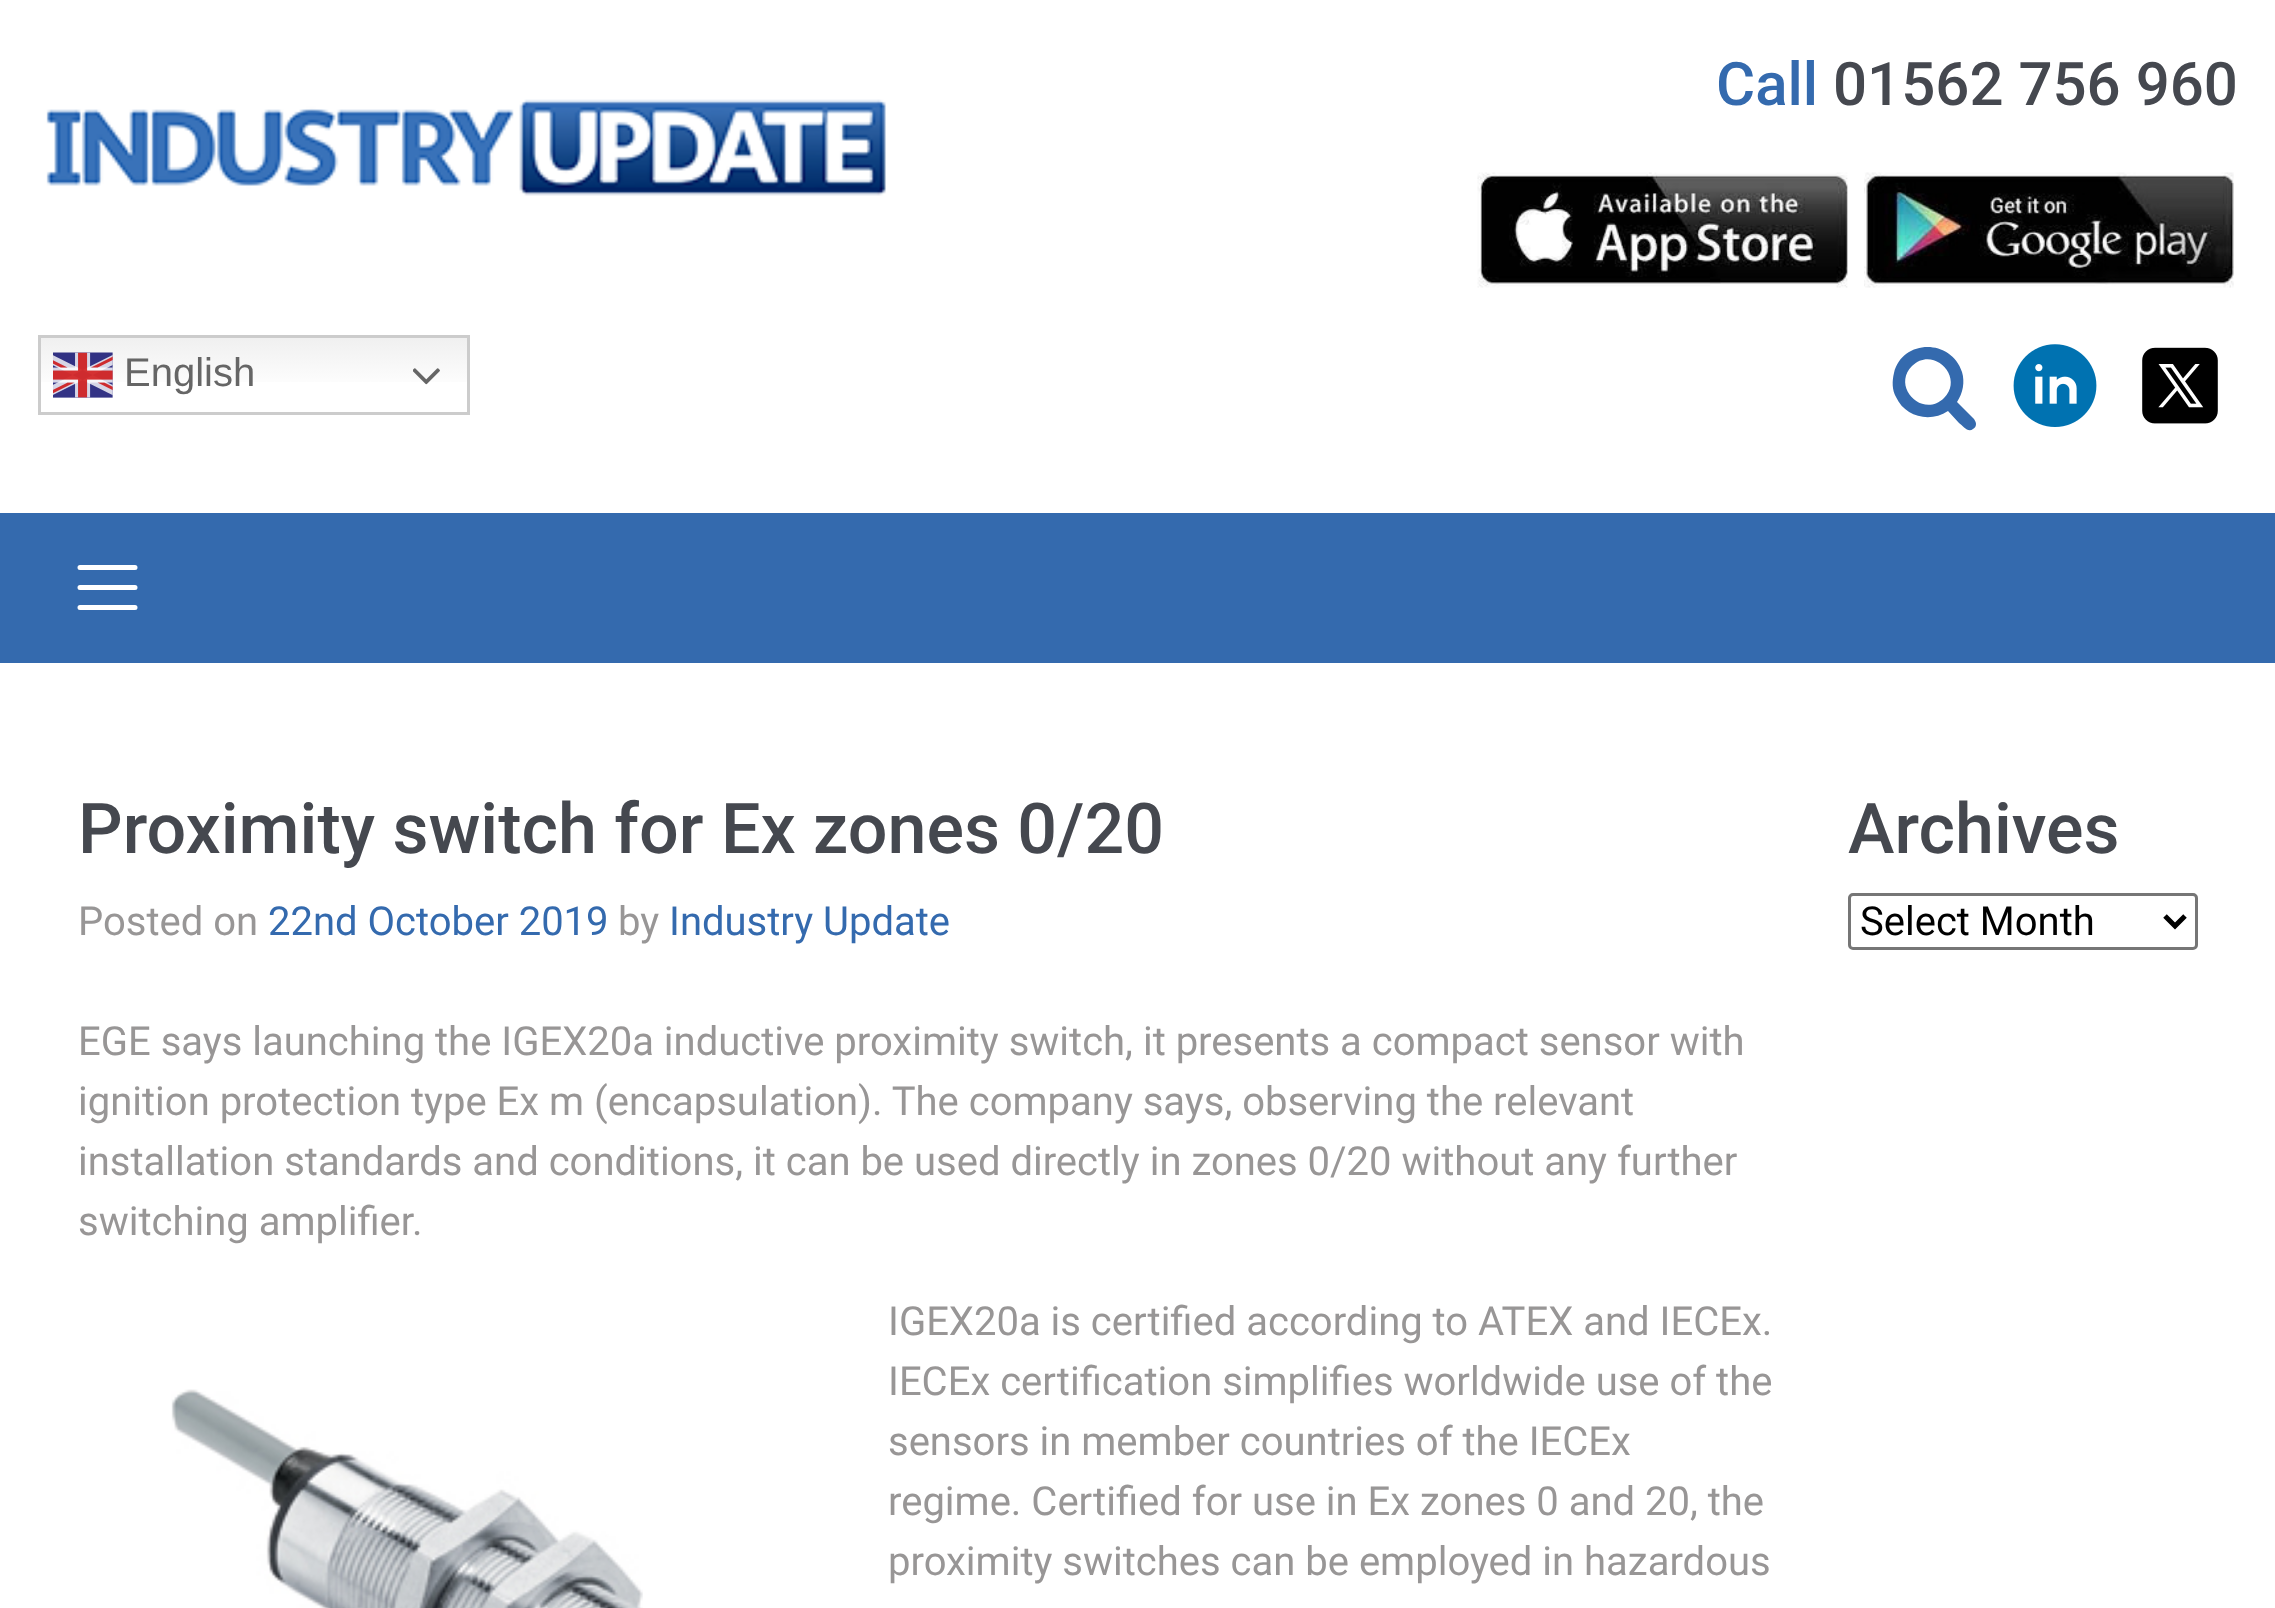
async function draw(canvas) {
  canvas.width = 2275;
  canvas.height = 1608;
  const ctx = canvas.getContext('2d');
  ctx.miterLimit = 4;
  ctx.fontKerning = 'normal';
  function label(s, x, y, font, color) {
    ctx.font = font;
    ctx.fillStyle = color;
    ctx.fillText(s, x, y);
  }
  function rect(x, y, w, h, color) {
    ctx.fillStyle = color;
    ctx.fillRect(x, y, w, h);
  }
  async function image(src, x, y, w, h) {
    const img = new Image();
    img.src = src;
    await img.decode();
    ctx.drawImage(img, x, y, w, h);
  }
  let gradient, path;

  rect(0, 0, 2275, 1608, '#fff');
  label('Call', 1716, 105, '500 60px Roboto', '#346aae');
  label('01562 756 960', 1833, 105, '500 60px Roboto', '#45484f');
  await image('assets/img1.png', 1477, 172, 371, 116);
  await image('assets/img2.png', 1864, 172, 370, 116);
  await image('assets/img3.png', 46, 99, 840, 97);
  gradient = ctx.createLinearGradient(254, 335, 254, 415);
  gradient.addColorStop(0, '#efefef');
  gradient.addColorStop(0.7, '#fff');
  ctx.fillStyle = gradient;
  ctx.fillRect(41, 338, 426, 44);
  ctx.strokeStyle = '#ccc';
  ctx.lineWidth = 3;
  ctx.strokeRect(39.5, 336.5, 429, 77);
  await image('assets/img4.png', 53, 352, 60, 46);
  label('English', 124, 386, '40px Liberation Sans', '#666');
  await image('assets/img5.png', 413, 368, 27, 17);
  ctx.fillStyle = '#346aae';
  path = new Path2D('M1944 398C1965 377 1933 345 1912 366C1891 387 1923 419 1944 398ZM1976 424C1976 426 1975 428 1973 429C1968 433 1963 426 1959 423L1948 411C1930 423 1905 417 1896 397C1892 390 1892 381 1894 373C1902 339 1951 338 1962 372C1965 382 1963 393 1957 402L1974 419C1975 421 1976 422 1976 424Z');
  ctx.fill(path);
  await image('assets/img6.png', 2013, 344, 84, 83);
  await image('assets/img7.png', 2142, 347, 76, 77);
  rect(0, 513, 2275, 150, '#346aae');
  path = new Path2D('M80 567.5H135M80 587.5H135M80 607.5H135');
  ctx.strokeStyle = '#fff';
  ctx.lineWidth = 5;
  ctx.lineCap = 'round';
  ctx.stroke(path);
  label('Proximity switch for Ex zones 0/20', 78, 853, '500 70px Roboto', '#45484f');
  label('Posted on', 78, 935, '40px Roboto', '#989696');
  label('22nd October 2019', 268, 935, '40px Roboto', '#346aae');
  label('by', 618, 935, '40px Roboto', '#989696');
  label('Industry Update', 669, 935, '40px Roboto', '#346aae');
  label('EGE says launching the IGEX20a inductive proximity switch, it presents a compact sensor with', 78, 1055, '40px Roboto', '#989696');
  label('ignition protection type Ex m (encapsulation). The company says, observing the relevant', 78, 1115, '40px Roboto', '#989696');
  label('installation standards and conditions, it can be used directly in zones 0/20 without any further', 78, 1175, '40px Roboto', '#989696');
  label('switching amplifier.', 78, 1235, '40px Roboto', '#989696');
  label('IGEX20a is certified according to ATEX and IECEx.', 888, 1335, '40px Roboto', '#989696');
  label('IECEx certification simplifies worldwide use of the', 888, 1395, '40px Roboto', '#989696');
  await image('assets/img8.png', 171, 1389, 472, 219);
  label('sensors in member countries of the IECEx', 888, 1455, '40px Roboto', '#989696');
  label('regime. Certified for use in Ex zones 0 and 20, the', 888, 1515, '40px Roboto', '#989696');
  label('proximity switches can be employed in hazardous', 888, 1575, '40px Roboto', '#989696');
  label('Archives', 1848, 853, '500 70px Roboto', '#45484f');
  ctx.beginPath();
  ctx.roundRect(1849.5, 894.5, 347, 54, 3.5);
  ctx.strokeStyle = '#767676';
  ctx.lineWidth = 3;
  ctx.stroke();
  path = new Path2D('M2165 916L2175 926L2185 916');
  ctx.strokeStyle = '#000';
  ctx.lineWidth = 5;
  ctx.lineCap = 'butt';
  ctx.stroke(path);
  label('Select Month', 1860, 935, '40px Roboto', '#000');
}

draw(document.querySelector('canvas'));
